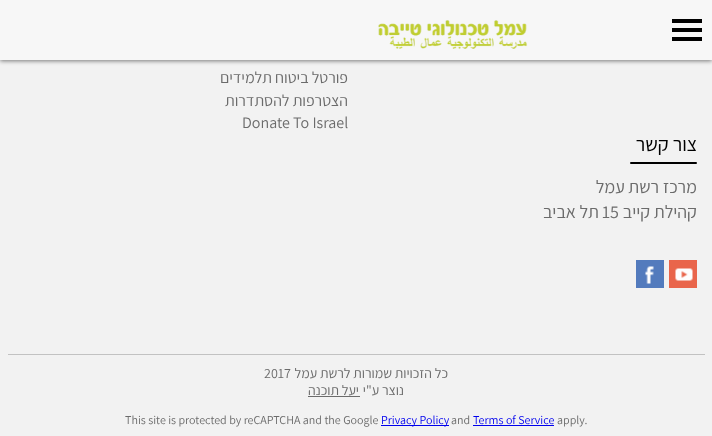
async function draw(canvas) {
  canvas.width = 712;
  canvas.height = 436;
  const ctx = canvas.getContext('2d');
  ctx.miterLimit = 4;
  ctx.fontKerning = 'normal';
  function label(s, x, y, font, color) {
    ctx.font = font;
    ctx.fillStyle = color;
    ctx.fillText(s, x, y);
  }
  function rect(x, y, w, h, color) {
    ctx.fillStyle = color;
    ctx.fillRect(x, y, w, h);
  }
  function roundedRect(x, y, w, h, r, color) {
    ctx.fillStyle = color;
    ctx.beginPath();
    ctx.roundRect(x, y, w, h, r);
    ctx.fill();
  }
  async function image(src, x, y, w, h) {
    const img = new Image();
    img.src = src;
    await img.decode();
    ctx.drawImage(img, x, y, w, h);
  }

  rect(0, 0, 712, 436, '#f2f2f2');
  ctx.fillStyle = '#00000080';
  ctx.filter = 'blur(2px)';
  ctx.beginPath();
  ctx.rect(0, 1, 712, 60);
  ctx.fill();
  ctx.filter = 'none';
  rect(0, 0, 712, 60, '#f7f7f7');
  rect(672, 19, 30, 4, '#000');
  rect(672, 28, 30, 4, '#000');
  rect(672, 37, 30, 4, '#000');
  await image('assets/img1.png', 378, 20, 150, 29);
  ctx.direction = 'rtl';
  label('פורטל ביטוח תלמידים', 348, 83, '200 16px Assistant', '#6b6b6b');
  label('הצטרפות להסתדרות', 348, 106, '200 16px Assistant', '#6b6b6b');
  ctx.direction = 'ltr';
  label('Donate To Israel', 242, 128, '200 16px Assistant', '#6b6b6b');
  ctx.direction = 'rtl';
  label('צור קשר', 697, 151, '200 20px Assistant', '#000');
  roundedRect(630, 162, 67, 2, 1, '#000');
  label('מרכז רשת עמל', 697, 193, '200 18px Assistant', '#6b6b6b');
  label('קהילת קייב', 697, 218, '200 18px Assistant', '#6b6b6b');
  ctx.direction = 'ltr';
  label('15', 602, 218, '200 18px Assistant', '#6b6b6b');
  ctx.direction = 'rtl';
  label('תל אביב', 599, 218, '200 18px Assistant', '#6b6b6b');
  await image('assets/img2.png', 669, 260, 28, 28);
  await image('assets/img3.png', 636, 260, 28, 28);
  rect(8, 354, 697, 1, '#c2c2c2');
  label('כל הזכויות שמורות לרשת עמל', 448, 378, '200 14px Assistant', '#6b6b6b');
  ctx.direction = 'ltr';
  label('2017', 264, 378, '200 14px Assistant', '#6b6b6b');
  ctx.direction = 'rtl';
  label('נוצר ע"י', 404, 395, '200 14px Assistant', '#6b6b6b');
  label('יעל תוכנה', 359, 395, '200 14px Assistant', '#6b6b6b');
  rect(308, 396, 52, 1, '#6b6b6b');
  ctx.direction = 'ltr';
  label('apply.', 557, 424, '200 12px Assistant', '#6b6b6b');
  label('Terms of Service', 473, 424, '200 12px Assistant', '#00e');
  rect(473, 425, 81, 1, '#00e');
  label('and', 451, 424, '200 12px Assistant', '#6b6b6b');
  rect(381, 425, 68, 1, '#00e');
  label('Privacy Policy', 381, 424, '200 12px Assistant', '#00e');
  label('This site is protected by reCAPTCHA and the Google', 125, 424, '200 12px Assistant', '#6b6b6b');
}

draw(document.querySelector('canvas'));
